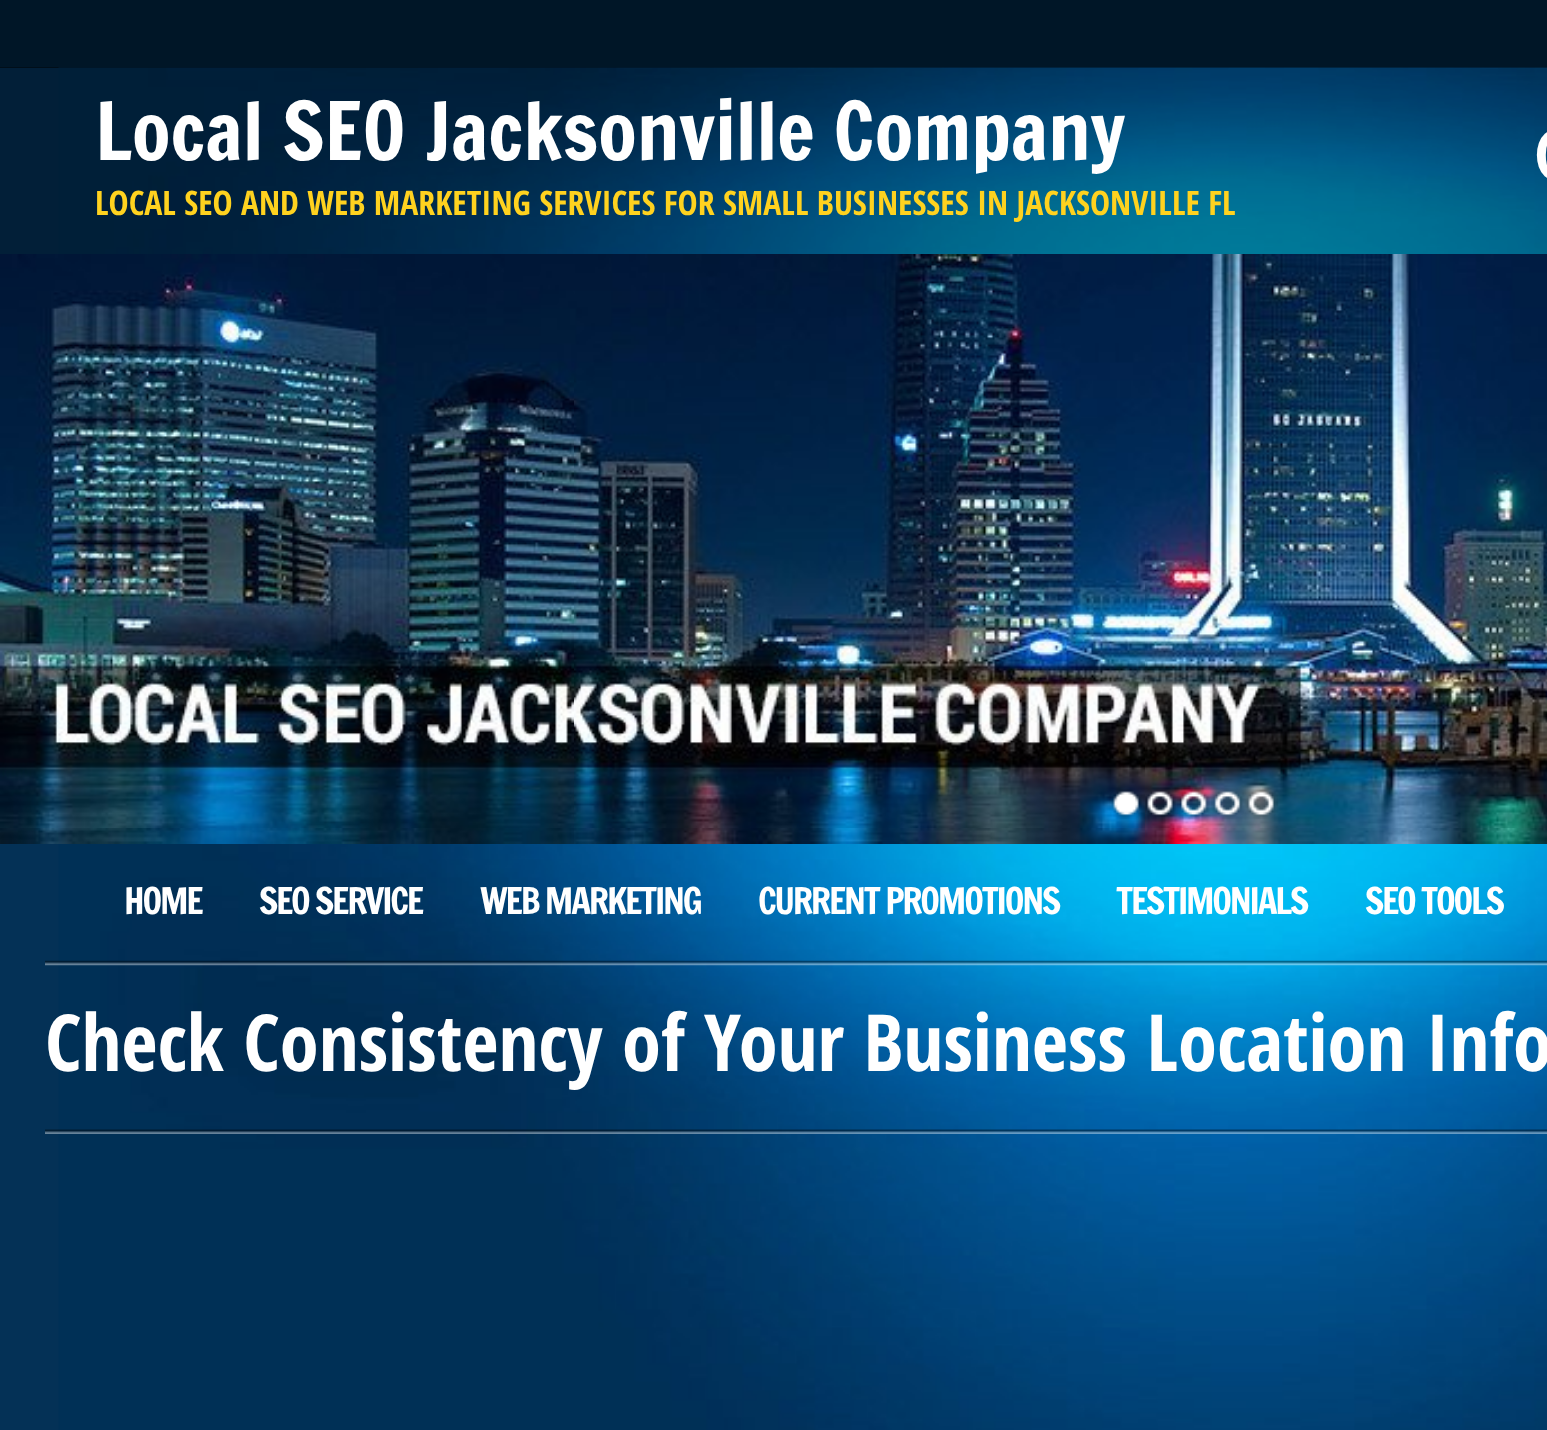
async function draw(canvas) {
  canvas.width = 1547;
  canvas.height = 1430;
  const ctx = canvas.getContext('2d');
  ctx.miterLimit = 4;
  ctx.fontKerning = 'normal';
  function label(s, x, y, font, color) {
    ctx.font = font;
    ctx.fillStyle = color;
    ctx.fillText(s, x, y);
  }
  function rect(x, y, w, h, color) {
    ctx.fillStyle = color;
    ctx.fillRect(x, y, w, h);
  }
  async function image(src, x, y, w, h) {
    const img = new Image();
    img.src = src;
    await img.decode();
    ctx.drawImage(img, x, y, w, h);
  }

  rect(0, 0, 1547, 1430, '#001627');
  rect(0, 68, 59, 1362, '#043156');
  await image('assets/img1.png', 58, 67, 1489, 1363);
  rect(0, 67, 1547, 187, '#00000059');
  label('Local SEO Jacksonville Company', 95, 160, '78.75px Francois One', '#fff');
  label('(', 1535, 178, '63px Francois One', '#fff');
  label('LOCAL SEO AND WEB MARKETING SERVICES FOR SMALL BUSINESSES IN JACKSONVILLE FL', 95, 215, 'bold 33.75px Open Sans Condensed', '#ffd21f');
  await image('assets/img2.png', 0, 254, 1547, 590);
  await image('assets/img3.png', 1109, 789, 33, 30);
  await image('assets/img4.png', 1145, 789, 31, 28);
  await image('assets/img5.png', 1177, 788, 33, 31);
  await image('assets/img6.png', 1211, 788, 33, 31);
  await image('assets/img7.png', 1244, 788, 34, 31);
  ctx.letterSpacing = '-2.25px';
  label('HOME', 124, 914, '36px Francois One', '#fff');
  label('SEO SERVICE', 259, 914, '36px Francois One', '#fff');
  label('WEB MARKETING', 480, 914, '36px Francois One', '#fff');
  label('CURRENT PROMOTIONS', 758, 914, '36px Francois One', '#fff');
  label('TESTIMONIALS', 1116, 914, '36px Francois One', '#fff');
  label('SEO TOOLS', 1365, 914, '36px Francois One', '#fff');
  await image('assets/img8.png', 45, 960, 1502, 6);
  await image('assets/img9.png', 45, 1129, 1502, 5);
  ctx.letterSpacing = '0px';
  label('Check Consistency of Your Business Location Info', 45, 1071, 'bold 78.75px Open Sans Condensed', '#fff');
}

draw(document.querySelector('canvas'));
